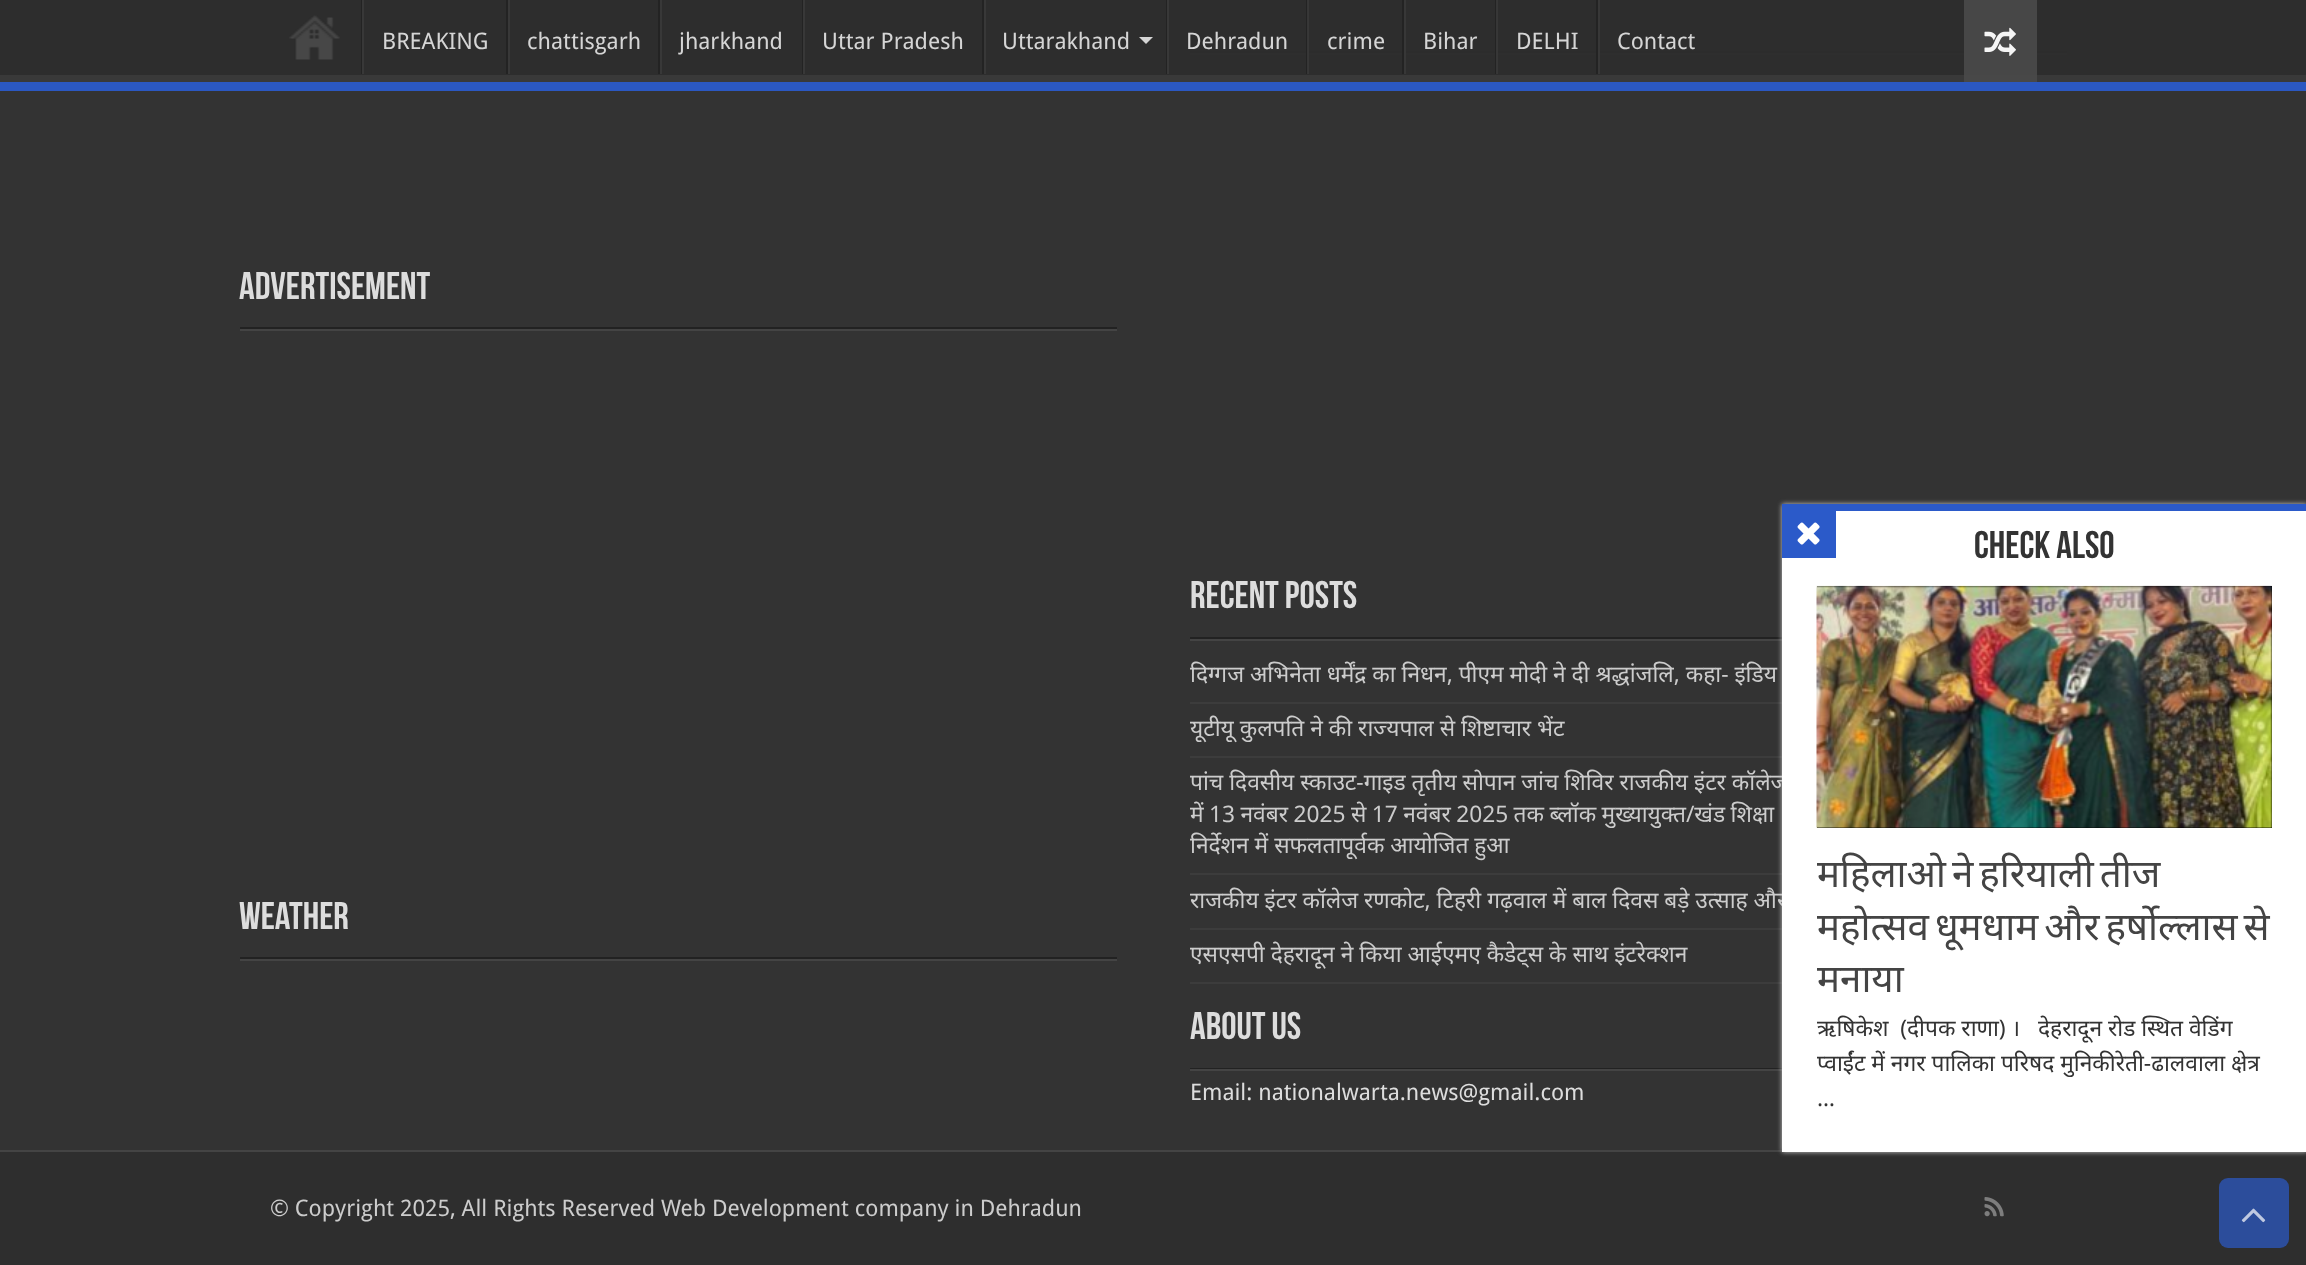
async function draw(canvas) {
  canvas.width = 2306;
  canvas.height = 1265;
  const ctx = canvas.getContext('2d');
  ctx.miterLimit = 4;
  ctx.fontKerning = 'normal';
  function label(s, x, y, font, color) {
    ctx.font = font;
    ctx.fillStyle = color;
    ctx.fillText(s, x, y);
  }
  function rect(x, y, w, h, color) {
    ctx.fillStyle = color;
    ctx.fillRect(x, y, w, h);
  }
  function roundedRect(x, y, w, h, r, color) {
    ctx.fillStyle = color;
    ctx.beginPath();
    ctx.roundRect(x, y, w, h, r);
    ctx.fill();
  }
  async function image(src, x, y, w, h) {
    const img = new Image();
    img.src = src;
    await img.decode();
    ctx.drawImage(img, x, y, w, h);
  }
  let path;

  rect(0, 0, 2306, 1265, '#333');
  rect(1190, 51, 877, 2, '#222');
  rect(1190, 53, 877, 2, '#444');
  rect(0, 0, 2306, 75, '#2d2d2df2');
  ctx.save();
  ctx.beginPath();
  ctx.rect(0, 0, 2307, 82);
  ctx.clip();
  ctx.fillStyle = '#393939';
  path = new Path2D('M-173-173H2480V256H-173ZM-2-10H2305C2306-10 2306-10 2306-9V74C2306 74 2306 75 2305 75H-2C-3 75-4 74-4 74V-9C-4-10-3-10-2-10Z');
  ctx.fill(path, 'evenodd');
  ctx.restore();
  rect(0, 82, 2306, 9, '#2b58c2');
  await image('assets/img1.png', 289, 15, 51, 45);
  rect(361, 0, 1, 74, '#232323');
  rect(362, 0, 2, 74, '#383838');
  label('BREAKING', 382, 49, '22.75px Droid Sans', '#d5d5d5');
  rect(506, 0, 2, 74, '#232323');
  rect(508, 0, 2, 74, '#383838');
  label('chattisgarh', 527, 49, '22.75px Droid Sans', '#d5d5d5');
  rect(658, 0, 2, 74, '#232323');
  rect(660, 0, 2, 74, '#383838');
  label('jharkhand', 679, 49, '22.75px Droid Sans', '#d5d5d5');
  rect(802, 0, 1, 74, '#232323');
  rect(803, 0, 2, 74, '#383838');
  label('Uttar Pradesh', 822, 49, '22.75px Droid Sans', '#d5d5d5');
  rect(982, 0, 2, 74, '#232323');
  rect(984, 0, 2, 74, '#383838');
  label('Uttarakhand', 1002, 49, '22.75px Droid Sans', '#d5d5d5');
  path = new Path2D('M1139 37H1153L1146 44Z');
  ctx.fill(path);
  rect(1166, 0, 1, 74, '#232323');
  rect(1167, 0, 2, 74, '#383838');
  label('Dehradun', 1186, 49, '22.75px Droid Sans', '#d5d5d5');
  rect(1306, 0, 2, 74, '#232323');
  rect(1307, 0, 2, 74, '#383838f2');
  label('crime', 1327, 49, '22.75px Droid Sans', '#d5d5d5');
  rect(1402, 0, 2, 74, '#232323');
  rect(1404, 0, 2, 74, '#373737');
  label('Bihar', 1423, 49, '22.75px Droid Sans', '#d5d5d5');
  rect(1495, 0, 2, 74, '#232323');
  rect(1496, 0, 2, 74, '#383838f2');
  label('DELHI', 1516, 49, '22.75px Droid Sans', '#d5d5d5');
  rect(1596, 0, 2, 74, '#232323');
  rect(1598, 0, 2, 74, '#373737');
  label('Contact', 1617, 49, '22.75px Droid Sans', '#d5d5d5');
  rect(1964, 0, 73, 82, '#494949f2');
  await image('assets/img2.png', 1984, 27, 32, 29);
  rect(1190, 637, 592, 2, '#222');
  rect(1190, 639, 592, 2, '#444');
  rect(1190, 702, 592, 2, '#3c3c3c');
  rect(1190, 756, 592, 2, '#3c3c3c');
  rect(1190, 873, 592, 2, '#3c3c3c');
  rect(1190, 928, 592, 2, '#3c3c3c');
  rect(1190, 982, 592, 2, '#3c3c3c');
  rect(1190, 1068, 592, 1, '#222');
  rect(1190, 1069, 592, 2, '#444');
  rect(0, 1152, 2306, 113, '#2e2e2e');
  rect(0, 1150, 1782, 2, '#444');
  ctx.fillStyle = '#cacaca';
  ctx.filter = 'blur(2.5px)';
  ctx.beginPath();
  ctx.rect(1782, 504, 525, 648);
  ctx.fill();
  ctx.filter = 'none';
  ctx.save();
  ctx.beginPath();
  ctx.rect(1190, 758, 877, 115);
  ctx.clip();
  label('पांच दिवसीय स्काउट-गाइड तृतीय सोपान जांच शिविर राजकीय इंटर कॉलेज', 1190, 790, '22.75px Noto Sans', '#ccc');
  ctx.restore();
  label('राजकीय इंटर कॉलेज रणकोट, टिहरी गढ़वाल में बाल दिवस बड़े उत्साह और', 1190, 908, '22.75px Noto Sans', '#ccc');
  rect(1782, 511, 524, 641, '#fff');
  rect(1782, 504, 524, 7, '#2b5ac9');
  rect(1782, 511, 54, 47, '#2b5ac9');
  await image('assets/img3.png', 1797, 522, 23, 23);
  label('Check Also', 1974, 558, 'bold 38.5px Bebas Neue', '#333');
  rect(1817, 586, 455, 242, '#000');
  await image('assets/img4.png', 1816, 585, 456, 243);
  ctx.wordSpacing = '-4px';
  label('महिलाओ ने हरियाली तीज', 1817, 887, '38.5px Noto Sans', '#444');
  label('महोत्सव धूमधाम और हर्षोल्लास से', 1817, 940, '38.5px Noto Sans', '#444');
  ctx.wordSpacing = '0px';
  label('मनाया', 1817, 992, '38.5px Noto Sans', '#444');
  label('ऋषिकेश  (दीपक राणा) ।   देहरादून रोड स्थित वेडिंग', 1817, 1036, '22.75px Noto Sans', '#333');
  label('प्वाईंट में नगर पालिका परिषद मुनिकीरेती-ढालवाला क्षेत्र', 1817, 1071, '22.75px Noto Sans', '#333');
  label('…', 1817, 1106, '22.75px Noto Sans', '#333');
  rect(240, 327, 877, 2, '#222');
  label('Advertisement', 239, 299, 'bold 38.5px Bebas Neue', '#ddd');
  rect(240, 329, 877, 2, '#444');
  rect(240, 957, 877, 2, '#222');
  label('Weather', 239, 929, 'bold 38.5px Bebas Neue', '#ddd');
  rect(240, 959, 877, 2, '#444');
  label('Recent Posts', 1190, 608, 'bold 38.5px Bebas Neue', '#ddd');
  label('दिग्गज अभिनेता धर्मेंद्र का निधन, पीएम मोदी ने दी श्रद्धांजलि, कहा- इंडिय', 1190, 682, '22.75px Noto Sans', '#ccc');
  ctx.save();
  ctx.beginPath();
  ctx.rect(1190, 704, 877, 52);
  ctx.clip();
  label('यूटीयू कुलपति ने की राज्यपाल से शिष्टाचार भेंट', 1190, 736, '22.75px Noto Sans', '#ccc');
  ctx.restore();
  ctx.save();
  ctx.beginPath();
  ctx.rect(1190, 758, 877, 115);
  ctx.clip();
  ctx.wordSpacing = '-0.5px';
  label('में 13 नवंबर 2025 से 17 नवंबर 2025 तक ब्लॉक मुख्यायुक्त/खंड शिक्षा', 1190, 822, '22.75px Noto Sans', '#ccc');
  ctx.restore();
  label('निर्देशन में सफलतापूर्वक आयोजित हुआ', 1190, 853, '22.75px Noto Sans', '#ccc');
  label('एसएसपी देहरादून ने किया आईएमए कैडेट्स के साथ इंटरेक्शन', 1190, 962, '22.75px Noto Sans', '#ccc');
  label('About Us', 1190, 1039, 'bold 38.5px Bebas Neue', '#ddd');
  label('Email: nationalwarta.news@gmail.com', 1190, 1100, '22.75px Droid Sans', '#ddd');
  label('© Copyright 2025, All Rights Reserved Web Development company in Dehradun', 270, 1216, '22.75px Droid Sans', '#ccc');
  await image('assets/img5.png', 1984, 1197, 20, 20);
  roundedRect(2219, 1178, 70, 70, 9, '#2c4d9b');
  await image('assets/img6.png', 2241, 1208, 25, 15);
}

draw(document.querySelector('canvas'));
